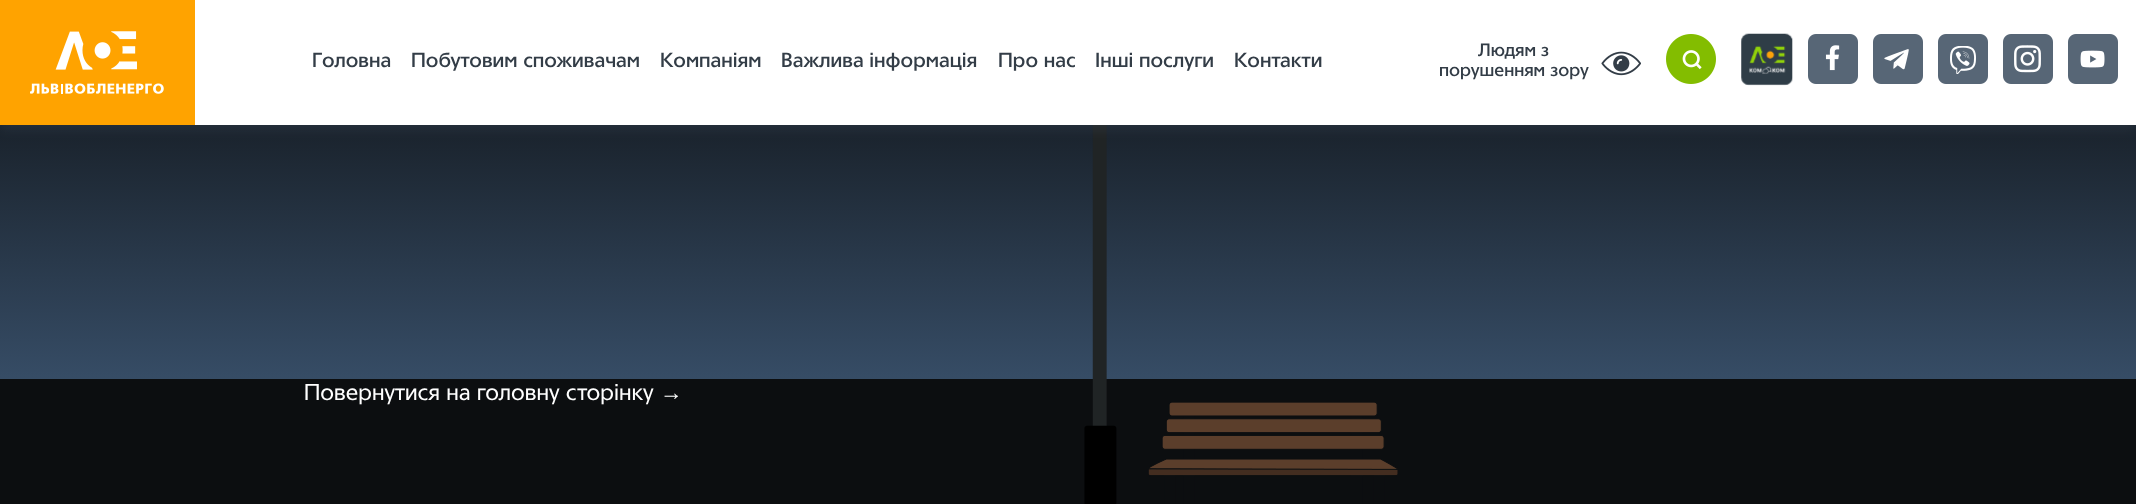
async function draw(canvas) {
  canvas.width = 2136;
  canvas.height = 504;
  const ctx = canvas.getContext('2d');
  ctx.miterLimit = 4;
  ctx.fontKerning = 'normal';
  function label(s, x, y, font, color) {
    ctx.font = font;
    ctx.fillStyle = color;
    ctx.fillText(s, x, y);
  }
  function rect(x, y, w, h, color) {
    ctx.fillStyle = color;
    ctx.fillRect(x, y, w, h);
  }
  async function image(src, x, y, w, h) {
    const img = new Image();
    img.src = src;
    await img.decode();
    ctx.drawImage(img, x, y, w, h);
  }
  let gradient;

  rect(0, 0, 2136, 504, '#fff');
  gradient = ctx.createLinearGradient(1068, 0, 1068, 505);
  gradient.addColorStop(0, '#0c0e10');
  gradient.addColorStop(1, '#446182');
  ctx.fillStyle = gradient;
  ctx.fillRect(0, 125, 2136, 254);
  rect(0, 379, 2136, 125, '#0c0e10');
  await image('assets/img10.png', 1084, 125, 314, 379);
  ctx.save();
  ctx.beginPath();
  ctx.rect(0, 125, 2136, 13);
  ctx.clip();
  ctx.fillStyle = '#57667633';
  ctx.filter = 'blur(6px)';
  ctx.beginPath();
  ctx.rect(0, 5, 2136, 125);
  ctx.fill();
  ctx.filter = 'none';
  ctx.restore();
  await image('assets/img1.png', 0, 0, 195, 125);
  label('Головна', 312, 67, '500 20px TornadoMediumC', '#333d47');
  label('Побутовим споживачам', 411, 67, '500 20px TornadoMediumC', '#333d47');
  label('Компаніям', 660, 67, '500 20px TornadoMediumC', '#333d47');
  label('Важлива інформація', 781, 67, '500 20px TornadoMediumC', '#333d47');
  label('Про нас', 998, 67, '500 20px TornadoMediumC', '#333d47');
  label('Інші послуги', 1095, 67, '500 20px TornadoMediumC', '#333d47');
  label('Контакти', 1234, 67, '500 20px TornadoMediumC', '#333d47');
  label('Людям з', 1478, 56, '500 17.5px TornadoMediumC', '#333d47');
  label('порушенням зору', 1439, 76, '500 17.5px TornadoMediumC', '#333d47');
  await image('assets/img2.png', 1601, 51, 40, 25);
  await image('assets/img3.png', 1666, 34, 50, 50);
  await image('assets/img4.png', 1741, 33, 52, 53);
  await image('assets/img5.png', 1808, 34, 50, 50);
  await image('assets/img6.png', 1873, 34, 50, 50);
  await image('assets/img7.png', 1938, 34, 50, 50);
  await image('assets/img8.png', 2003, 34, 50, 50);
  await image('assets/img9.png', 2068, 34, 50, 50);
  label('Повернутися на головну сторінку', 304, 400, '22.5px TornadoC', '#fff');
  label('→', 660, 400, '22.5px Liberation Serif', '#fff');
}

draw(document.querySelector('canvas'));
